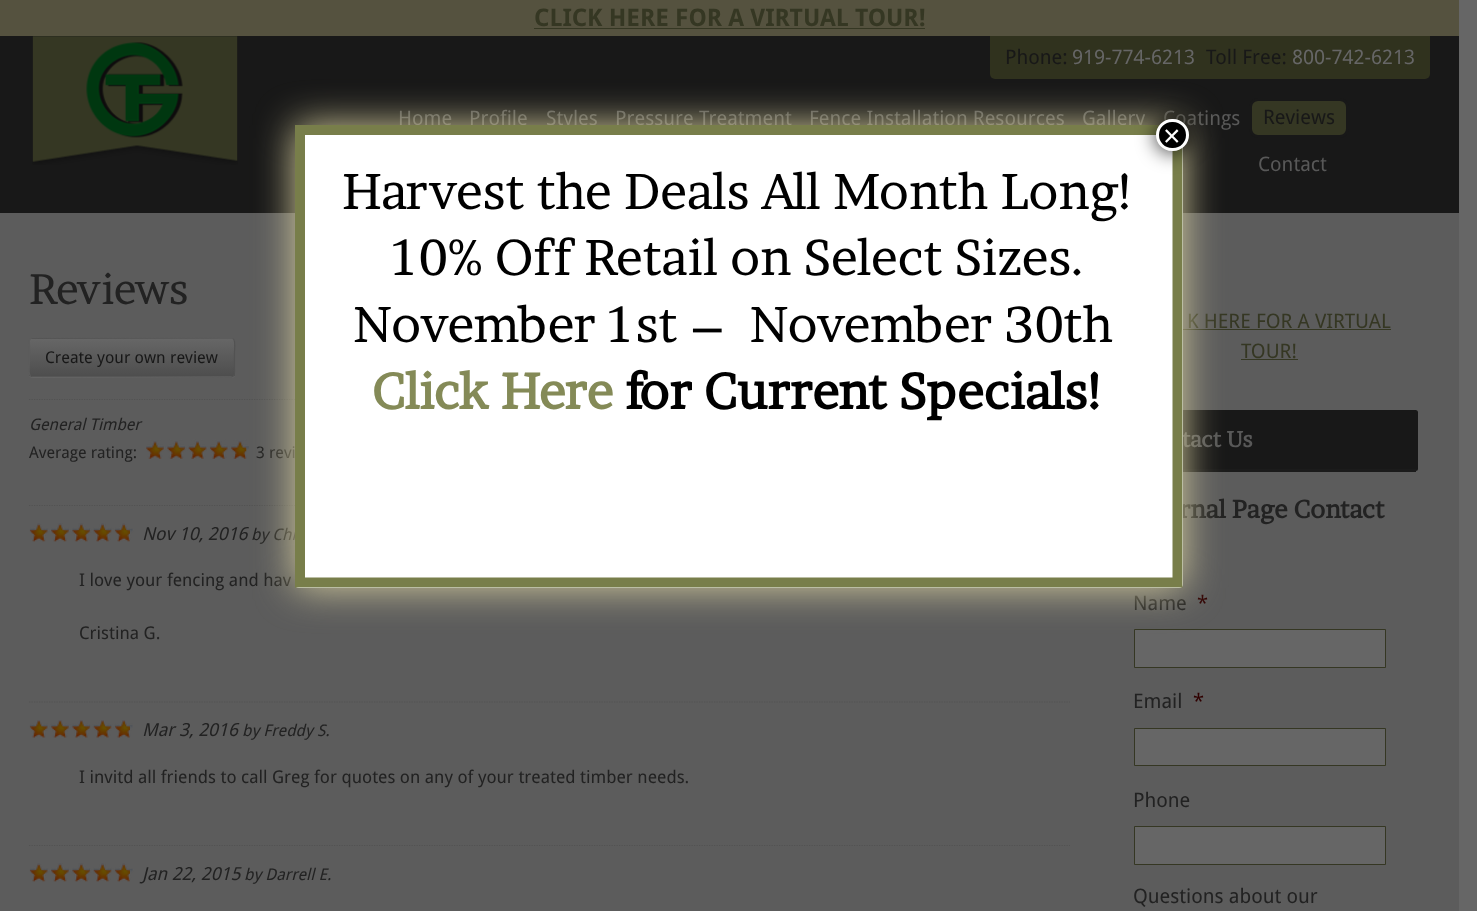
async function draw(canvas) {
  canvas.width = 1477;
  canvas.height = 911;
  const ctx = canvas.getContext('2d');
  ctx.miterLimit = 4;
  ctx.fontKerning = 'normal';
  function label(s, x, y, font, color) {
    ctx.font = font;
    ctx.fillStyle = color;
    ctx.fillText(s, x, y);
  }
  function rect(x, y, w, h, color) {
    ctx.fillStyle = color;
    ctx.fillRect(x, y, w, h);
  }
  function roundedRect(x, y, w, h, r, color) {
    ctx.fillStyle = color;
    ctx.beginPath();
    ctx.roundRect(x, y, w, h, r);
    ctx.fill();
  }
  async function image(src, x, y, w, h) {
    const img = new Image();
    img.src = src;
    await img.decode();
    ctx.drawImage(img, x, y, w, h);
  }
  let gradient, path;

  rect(0, 0, 1477, 911, '#666');
  rect(0, 36, 1459, 177, '#181818');
  rect(0, 0, 1459, 36, '#55523f');
  label('CLICK HERE FOR A VIRTUAL TOUR!', 534, 26, 'bold 24.25px Droid Sans', '#353723');
  rect(534, 28, 391, 1, '#353723');
  await image('assets/img1.png', 32, 36, 206, 129);
  ctx.fillStyle = '#30321e';
  ctx.beginPath();
  ctx.roundRect(990, 36, 440, 43, [0, 0, 5, 5]);
  ctx.fill();
  label('Phone:', 1005, 64, '20px Droid Sans', '#181818');
  label('919-774-6213', 1072, 64, '20px Droid Sans', '#666');
  label('Toll Free:', 1206, 64, '20px Droid Sans', '#181818');
  label('800-742-6213', 1292, 64, '20px Droid Sans', '#666');
  label('Home', 398, 125, '20px Droid Sans', '#585858');
  label('Profile', 469, 125, '20px Droid Sans', '#585858');
  label('Styles', 546, 125, '20px Droid Sans', '#585858');
  label('Pressure Treatment', 615, 125, '20px Droid Sans', '#585858');
  label('Fence Installation Resources', 809, 125, '20px Droid Sans', '#585858');
  label('Gallery', 1082, 125, '20px Droid Sans', '#585858');
  label('Coatings', 1163, 125, '20px Droid Sans', '#585858');
  ctx.fillStyle = '#353723';
  ctx.beginPath();
  ctx.roundRect(1250.5, 99.5, 97, 37, 7.5);
  ctx.fill();
  ctx.strokeStyle = '#181818';
  ctx.lineWidth = 3;
  ctx.stroke();
  label('Reviews', 1263, 124, '20px Droid Sans', '#181818');
  label('Contact', 1258, 171, '20px Droid Sans', '#585858');
  rect(0, 213, 1459, 698, '#5c5c5c');
  label('Reviews', 29, 304, '42.5px Brawler', '#222');
  ctx.save();
  ctx.beginPath();
  ctx.roundRect(29, 338, 206, 40, 4);
  ctx.clip();
  gradient = ctx.createLinearGradient(132, 301, 132, 339);
  gradient.addColorStop(0, '#666');
  gradient.addColorStop(1, '#4e4e4e');
  ctx.fillStyle = gradient;
  ctx.fillRect(29, 338, 206, 1);
  gradient = ctx.createLinearGradient(132, 339, 132, 376);
  gradient.addColorStop(0, '#666');
  gradient.addColorStop(1, '#4e4e4e');
  ctx.fillStyle = gradient;
  ctx.fillRect(29, 339, 206, 37);
  gradient = ctx.createLinearGradient(132, 376, 132, 414);
  gradient.addColorStop(0, '#666');
  gradient.addColorStop(1, '#4e4e4e');
  ctx.fillStyle = gradient;
  ctx.fillRect(29, 376, 206, 2);
  ctx.restore();
  path = new Path2D('M233.5 339C235.5 341 234.5 349.5 234.5 352V368.5C234.5 370.5 235.5 377 231 377L31.5 376.5L30.5 376');
  ctx.strokeStyle = '#525252';
  ctx.lineWidth = 1.2;
  ctx.stroke(path);
  path = new Path2D('M30.5 376C28 374 29.5 365.5 29.5 363V346.5C29.5 344.5 28 338 32.5 338L232 338.5L233.5 339');
  ctx.strokeStyle = '#5c5c5c';
  ctx.stroke(path);
  label('Create your own review', 45, 363, '16.25px Droid Sans', '#181818');
  path = new Path2D('M29 399.5H1070');
  ctx.strokeStyle = '#525252';
  ctx.setLineDash([1.25, 1.25]);
  ctx.stroke(path);
  label('General Timber', 29, 430, 'italic 16px Droid Sans', '#222');
  label('Average rating:', 29, 458, '16px Droid Sans', '#222');
  await image('assets/img2.png', 146, 440, 103, 18);
  await image('assets/img3.png', 146, 439, 101, 20);
  label('3 revi', 256, 458, '16px Droid Sans', '#222');
  path = new Path2D('M29 505.5H1070');
  ctx.stroke(path);
  await image('assets/img4.png', 30, 523, 104, 18);
  await image('assets/img5.png', 29, 523, 101, 19);
  label('Nov 10, 2016', 142, 540, 'italic 18px Droid Sans', '#222');
  label('by Chr', 251, 540, 'italic 16px Droid Sans', '#222');
  label('I love your fencing and hav', 79, 586, '17.5px Droid Sans', '#222');
  label('Cristina G.', 79, 639, '17.5px Droid Sans', '#222');
  path = new Path2D('M29 702H1070');
  ctx.stroke(path);
  await image('assets/img6.png', 30, 720, 103, 17);
  await image('assets/img7.png', 29, 720, 101, 18);
  label('Mar 3, 2016', 142, 736, 'italic 18px Droid Sans', '#222');
  label('by Freddy S.', 242, 736, 'italic 16px Droid Sans', '#222');
  label('I invitd all friends to call Greg for quotes on any of your treated timber needs.', 79, 783, '17.5px Droid Sans', '#222');
  path = new Path2D('M29 845.5H1070');
  ctx.stroke(path);
  await image('assets/img4.png', 30, 863, 104, 18);
  await image('assets/img5.png', 29, 863, 101, 19);
  label('Jan 22, 2015', 142, 880, 'italic 18px Droid Sans', '#222');
  label('by Darrell E.', 244, 880, 'italic 16px Droid Sans', '#222');
  label('K HERE FOR A VIRTUAL', 1187, 328, '20px Droid Sans', '#353723');
  rect(1183, 329, 208, 1, '#353723');
  label('TOUR!', 1241, 358, '20px Droid Sans', '#353723');
  rect(1241, 359, 57, 1, '#353723');
  roundedRect(1121, 410, 297, 61, 2.5, '#181818');
  rect(1183, 469, 233, 3, '#1b1b1b');
  label('tact Us', 1182, 447, 'bold 22px Brawler', '#585858');
  label('rnal Page Contact', 1179, 518, 'bold 25px Brawler', '#222');
  label('Name', 1133, 610, '20px Droid Sans', '#222');
  label('*', 1197, 610, '20px Droid Sans', '#300000');
  ctx.fillStyle = '#666';
  ctx.beginPath();
  ctx.rect(1134.5, 629.5, 251, 38);
  ctx.fill();
  ctx.strokeStyle = '#353723';
  ctx.lineWidth = 1;
  ctx.setLineDash([]);
  ctx.stroke();
  label('Email', 1133, 708, '20px Droid Sans', '#222');
  label('*', 1193, 708, '20px Droid Sans', '#300000');
  ctx.fillStyle = '#666';
  ctx.beginPath();
  ctx.rect(1134.5, 728.5, 251, 37);
  ctx.fill();
  ctx.stroke();
  label('Phone', 1133, 807, '20px Droid Sans', '#222');
  ctx.fillStyle = '#666';
  ctx.beginPath();
  ctx.rect(1134.5, 826.5, 251, 38);
  ctx.fill();
  ctx.stroke();
  label('Questions about our', 1133, 903, '20px Droid Sans', '#222');
  ctx.fillStyle = '#d5cd9e';
  ctx.filter = 'blur(19px)';
  ctx.beginPath();
  ctx.roundRect(295, 125, 888, 463, 4);
  ctx.fill();
  ctx.filter = 'none';
  roundedRect(295, 125, 888, 463, 4, '#fff');
  path = new Path2D('M300 130H1177.5V582.5H300Z');
  ctx.strokeStyle = '#787e4a';
  ctx.lineWidth = 10;
  ctx.stroke(path);
  ctx.fillStyle = '#020202bf';
  ctx.filter = 'blur(9.5px)';
  ctx.beginPath();
  ctx.roundRect(1155, 118, 35, 35, 17.5);
  ctx.fill();
  ctx.filter = 'none';
  ctx.fillStyle = '#000';
  ctx.beginPath();
  ctx.roundRect(1157.5, 120.5, 30, 29, 14.5);
  ctx.fill();
  ctx.strokeStyle = '#fff';
  ctx.lineWidth = 3;
  ctx.stroke();
  label('×', 1163, 146, '30px Liberation Sans', '#fff');
  label('Harvest the Deals All Month Long!', 342, 209, '50px Brawler', '#000');
  label('10% Off Retail on Select Sizes.', 392, 275, '50px Brawler', '#000');
  label('November 1st –  November 30th', 353, 342, '50px Brawler', '#000');
  label('Click Here', 372, 409, 'bold 50px Brawler', '#848a57');
  label('for Current Specials!', 625, 409, 'bold 50px Brawler', '#000');
}

draw(document.querySelector('canvas'));
